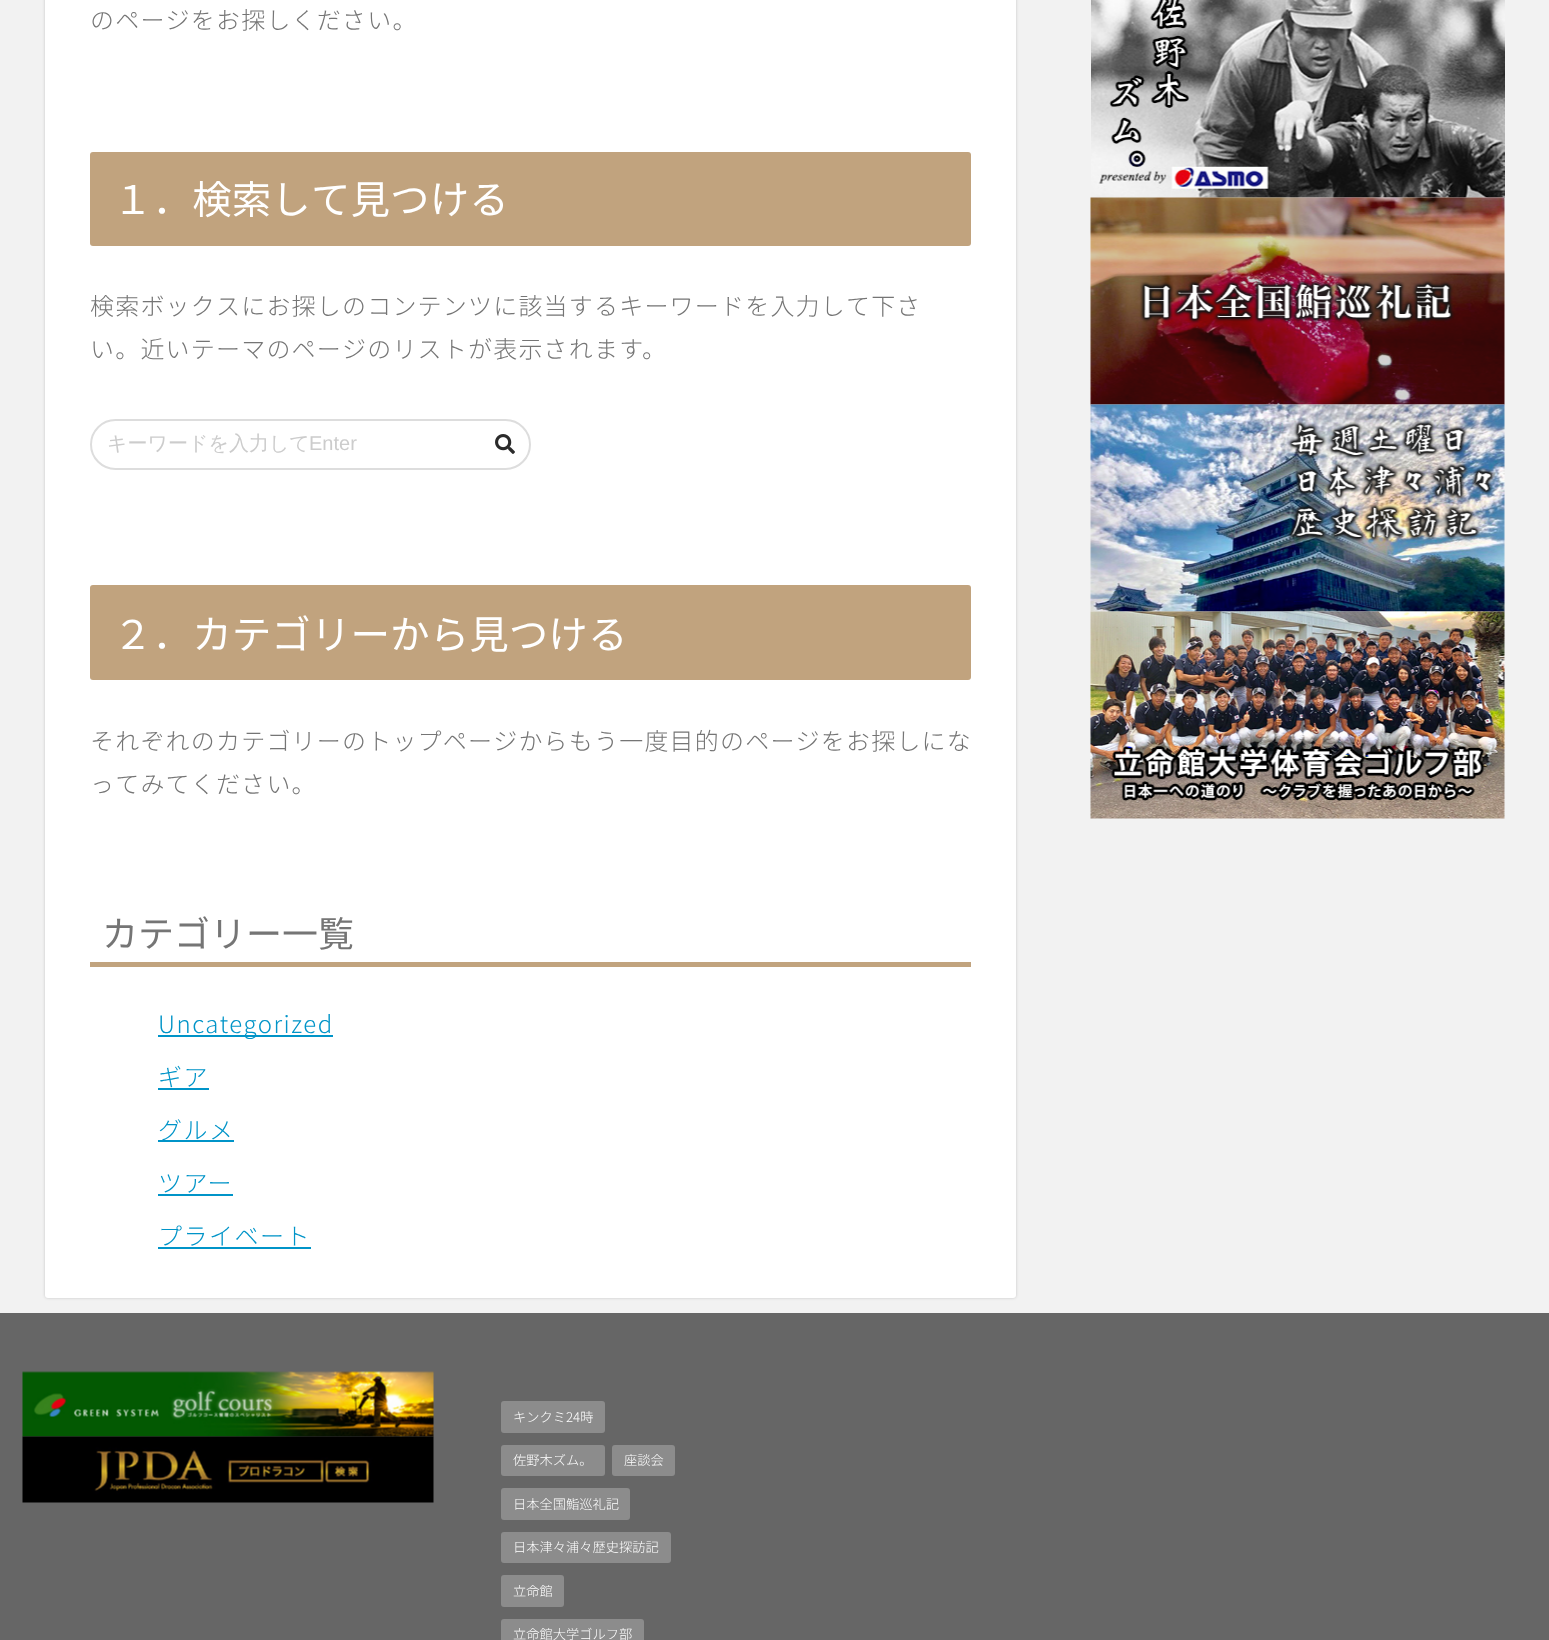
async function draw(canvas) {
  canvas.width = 1549;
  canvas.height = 1640;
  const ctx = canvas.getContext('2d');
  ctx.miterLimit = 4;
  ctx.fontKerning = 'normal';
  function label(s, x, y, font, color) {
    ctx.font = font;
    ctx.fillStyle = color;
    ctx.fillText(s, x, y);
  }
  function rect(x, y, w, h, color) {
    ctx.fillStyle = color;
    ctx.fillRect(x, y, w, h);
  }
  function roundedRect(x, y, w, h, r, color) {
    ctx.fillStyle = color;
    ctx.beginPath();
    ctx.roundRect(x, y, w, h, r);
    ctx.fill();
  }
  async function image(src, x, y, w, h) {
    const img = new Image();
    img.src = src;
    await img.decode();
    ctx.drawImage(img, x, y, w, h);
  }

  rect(0, 0, 1549, 1640, '#f2f2f2');
  ctx.fillStyle = '#0000002e';
  ctx.filter = 'blur(1.5px)';
  ctx.beginPath();
  ctx.roundRect(45, -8, 971, 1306, 3);
  ctx.fill();
  ctx.filter = 'none';
  roundedRect(45, -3, 971, 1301, 3, '#fff');
  ctx.letterSpacing = '1.2px';
  label('のページをお探しください。', 90, 29, '300 24px Noto Sans JP', '#757575');
  roundedRect(90, 152, 881, 94, 3, '#c1a37e');
  ctx.letterSpacing = '0px';
  label('１．検索して見つける', 113, 214, '39.6px Noto Sans JP', '#fff');
  ctx.letterSpacing = '1.2px';
  label('検索ボックスにお探しのコンテンツに該当するキーワードを入力して下さ', 90, 315, '300 24px Noto Sans JP', '#757575');
  label('い。近いテーマのページのリストが表示されます。', 90, 358, '300 24px Noto Sans JP', '#757575');
  ctx.beginPath();
  ctx.roundRect(91, 420, 439, 49, 24.5);
  ctx.strokeStyle = '#ddd';
  ctx.lineWidth = 2;
  ctx.stroke();
  ctx.letterSpacing = '0px';
  label('キーワードを入力して', 107, 450, '500 20px WenQuanYi Zen Hei', '#ccc');
  label('Enter', 309, 450, '20px Liberation Sans', '#ccc');
  await image('assets/img1.png', 495, 434, 20, 20);
  roundedRect(90, 585, 881, 95, 3, '#c1a37e');
  label('２．カテゴリーから見つける', 113, 649, '39.6px Noto Sans JP', '#fff');
  ctx.letterSpacing = '1.2px';
  label('それぞれのカテゴリーのトップページからもう一度目的のページをお探しにな', 90, 750, '300 24px Noto Sans JP', '#757575');
  label('ってみてください。', 90, 793, '300 24px Noto Sans JP', '#757575');
  rect(90, 962, 881, 5, '#c1a37e');
  ctx.letterSpacing = '0px';
  label('カテゴリー一覧', 102, 947, '36px Noto Sans JP', '#757575');
  rect(158, 1035, 175, 2, '#0094c8');
  ctx.letterSpacing = '1.5px';
  label('Uncategorized', 158, 1033, '300 24px Noto Sans JP', '#0094c8');
  label('ギア', 158, 1086, '300 24px Noto Sans JP', '#0094c8');
  rect(158, 1088, 51, 2, '#0094c8');
  rect(158, 1140, 76, 2, '#0094c8');
  label('グルメ', 158, 1139, '300 24px Noto Sans JP', '#0094c8');
  label('ツアー', 158, 1192, '300 24px Noto Sans JP', '#0094c8');
  rect(158, 1194, 75, 2, '#0094c8');
  label('プライベート', 158, 1245, '300 24px Noto Sans JP', '#0094c8');
  rect(158, 1247, 153, 2, '#0094c8');
  await image('assets/img2.png', 1091, 0, 414, 198);
  await image('assets/img3.png', 1090, 197, 415, 208);
  await image('assets/img4.png', 1090, 404, 415, 208);
  await image('assets/img5.png', 1090, 611, 415, 208);
  rect(0, 1313, 1549, 327, '#666');
  await image('assets/img6.png', 22, 1371, 412, 66);
  await image('assets/img7.png', 22, 1436, 412, 67);
  roundedRect(501, 1401, 104, 32, 3, '#8c8c8c');
  ctx.letterSpacing = '0px';
  label('キンクミ24時', 513, 1422, '300 13.25px Noto Sans JP', '#fff');
  roundedRect(501, 1445, 104, 31, 3, '#8c8c8c');
  label('佐野木ズム。', 513, 1465, '300 13.25px Noto Sans JP', '#fff');
  roundedRect(612, 1445, 63, 31, 3, '#8c8c8c');
  label('座談会', 624, 1465, '300 13.25px Noto Sans JP', '#fff');
  roundedRect(501, 1488, 129, 32, 3, '#8c8c8c');
  label('日本全国鮨巡礼記', 513, 1509, '300 13.25px Noto Sans JP', '#fff');
  roundedRect(501, 1532, 170, 31, 3, '#8c8c8c');
  label('日本津々浦々歴史探訪記', 513, 1552, '300 13.25px Noto Sans JP', '#fff');
  roundedRect(501, 1575, 63, 32, 3, '#8c8c8c');
  label('立命館', 513, 1596, '300 13.25px Noto Sans JP', '#fff');
  roundedRect(501, 1619, 143, 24, 3, '#8c8c8c');
  label('立命館大学ゴルフ部', 513, 1639, '300 13.25px Noto Sans JP', '#fff');
}

draw(document.querySelector('canvas'));
